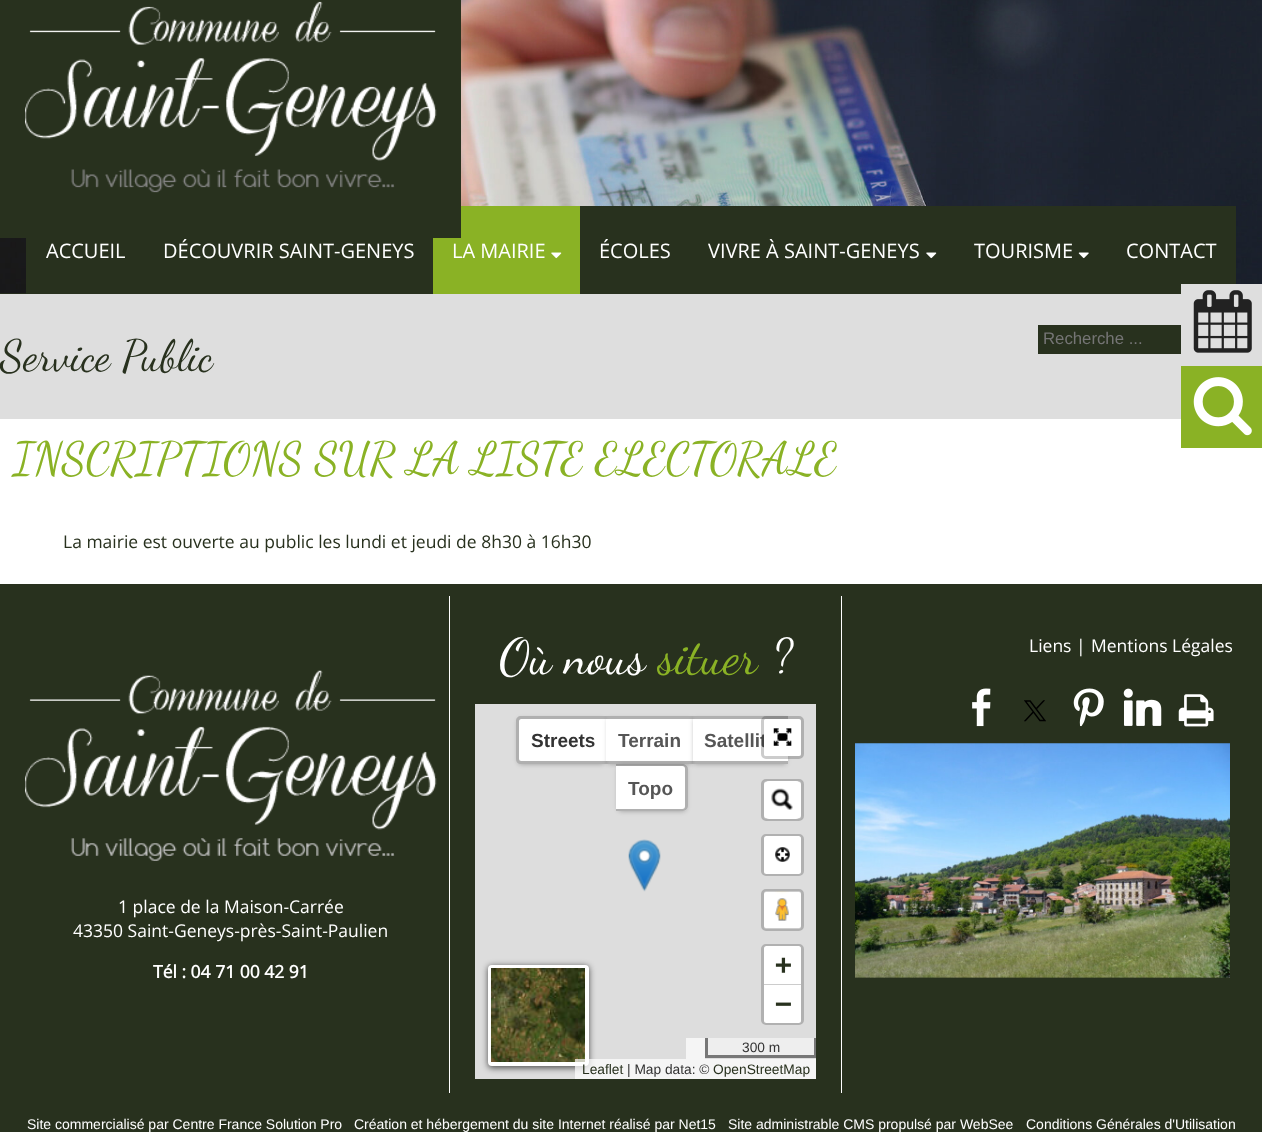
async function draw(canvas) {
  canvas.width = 1262;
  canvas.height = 1132;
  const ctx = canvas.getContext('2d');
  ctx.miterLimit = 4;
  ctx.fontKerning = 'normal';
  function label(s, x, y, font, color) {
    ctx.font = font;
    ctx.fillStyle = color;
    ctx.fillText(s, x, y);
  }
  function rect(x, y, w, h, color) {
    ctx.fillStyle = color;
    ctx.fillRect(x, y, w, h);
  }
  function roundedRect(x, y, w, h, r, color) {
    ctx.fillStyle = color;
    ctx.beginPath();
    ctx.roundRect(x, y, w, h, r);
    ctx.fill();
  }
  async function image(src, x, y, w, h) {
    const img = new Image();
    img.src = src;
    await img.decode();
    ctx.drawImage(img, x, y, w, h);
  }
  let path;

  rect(0, 0, 1262, 1132, '#fff');
  rect(0, 293, 26, 1, '#28311e');
  await image('assets/img1.png', 0, 0, 1262, 294);
  rect(433, 206, 147, 88, '#8ab225');
  rect(0, 0, 461, 238, '#28311e');
  await image('assets/img2.png', 25, 1, 412, 192);
  rect(26, 238, 407, 56, '#28311e');
  label('ACCUEIL', 46, 258, '20px Open Sans', '#fff');
  label('DÉCOUVRIR SAINT-GENEYS', 163, 258, '20px Open Sans', '#fff');
  label('LA MAIRIE', 452, 258, '20px Open Sans', '#fff');
  await image('assets/img3.png', 551, 252, 11, 7);
  rect(580, 206, 656, 88, '#28311e');
  label('ÉCOLES', 599, 258, '20px Open Sans', '#fff');
  label('VIVRE À SAINT-GENEYS', 708, 258, '20px Open Sans', '#fff');
  await image('assets/img4.png', 926, 252, 11, 7);
  label('TOURISME', 974, 258, '20px Open Sans', '#fff');
  await image('assets/img5.png', 1078, 252, 11, 7);
  label('CONTACT', 1126, 258, '20px Open Sans', '#fff');
  rect(0, 294, 1262, 125, '#dedede');
  label('Service Public', 0, 370, '43.75px Dancing Script', '#28311e');
  rect(1038, 325, 143, 29, '#28311e');
  label('Recherche ...', 1043, 344, '16.75px Liberation Sans', '#757575');
  label('INSCRIPTIONS SUR LA LISTE ELECTORALE', 13, 473, '45px Dancing Script', '#8ab225');
  label('La mairie est ouverte au public les lundi et jeudi de 8h30 à 16h30', 63, 548, '17.5px Open Sans', '#28311e');
  rect(1181, 284, 81, 10, '#dedede');
  await image('assets/img6.png', 1193, 290, 59, 63);
  rect(1181, 366, 81, 82, '#8ab225');
  await image('assets/img7.png', 1193, 377, 59, 59);
  rect(0, 584, 1262, 548, '#28311e');
  rect(841, 596, 1, 497, '#fff');
  rect(449, 596, 1, 497, '#fff');
  label('Où nous', 499, 673, '50px Dancing Script', '#fff');
  label('situer', 658, 673, '50px Dancing Script', '#8ab225');
  label('?', 771, 673, '50px Dancing Script', '#fff');
  rect(475, 704, 341, 375, '#ddd');
  ctx.save();
  path = new Path2D('M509 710H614V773H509ZM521 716H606V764H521C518 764 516 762 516 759V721C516 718 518 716 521 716Z');
  ctx.clip(path, 'evenodd');
  ctx.fillStyle = '#0000004d';
  ctx.filter = 'blur(2.5px)';
  ctx.beginPath();
  ctx.roundRect(518, 719, 87, 45, 4);
  ctx.fill();
  ctx.filter = 'none';
  ctx.restore();
  ctx.fillStyle = '#fff';
  ctx.beginPath();
  ctx.roundRect(519, 719, 87, 42, [2.5, 0, 0, 2.5]);
  ctx.fill();
  ctx.fillStyle = '#00000033';
  path = new Path2D('M521 716H606V764H521C518 764 516 762 516 759V721C516 718 518 716 521 716ZM521 719H606V761H521C520 761 519 760 519 759V721C519 720 520 719 521 719Z');
  ctx.fill(path, 'evenodd');
  label('Streets', 531, 747, 'bold 19px Liberation Sans', '#333');
  ctx.save();
  path = new Path2D('M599 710H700V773H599ZM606 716H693V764H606Z');
  ctx.clip(path, 'evenodd');
  ctx.fillStyle = '#0000004d';
  ctx.filter = 'blur(2.5px)';
  ctx.beginPath();
  ctx.rect(608, 719, 83, 45);
  ctx.fill();
  ctx.filter = 'none';
  ctx.restore();
  rect(606, 719, 87, 42, '#fff');
  rect(606, 716, 87, 3, '#00000033');
  rect(606, 761, 87, 3, '#00000033');
  label('Terrain', 618, 747, 'bold 19px Liberation Sans', '#565656');
  ctx.save();
  path = new Path2D('M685 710H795V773H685ZM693 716H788V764H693Z');
  ctx.clip(path, 'evenodd');
  ctx.fillStyle = '#0000004d';
  ctx.filter = 'blur(2.5px)';
  ctx.beginPath();
  ctx.rect(694, 719, 92, 45);
  ctx.fill();
  ctx.filter = 'none';
  ctx.restore();
  rect(693, 719, 95, 42, '#fff');
  rect(693, 716, 95, 3, '#00000033');
  rect(693, 761, 95, 3, '#00000033');
  label('Satellit', 704, 747, 'bold 19px Liberation Sans', '#565656');
  ctx.save();
  path = new Path2D('M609 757H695V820H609ZM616 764H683C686 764 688 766 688 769V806C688 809 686 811 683 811H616Z');
  ctx.clip(path, 'evenodd');
  ctx.fillStyle = '#0000004d';
  ctx.filter = 'blur(2.5px)';
  ctx.beginPath();
  ctx.roundRect(618, 766, 68, 45, 4);
  ctx.fill();
  ctx.filter = 'none';
  ctx.restore();
  ctx.fillStyle = '#fff';
  ctx.beginPath();
  ctx.roundRect(616, 766, 69, 43, [0, 2.5, 2.5, 0]);
  ctx.fill();
  ctx.fillStyle = '#00000033';
  path = new Path2D('M616 764H682C685 764 688 766 688 769V806C688 809 685 811 682 811H616ZM616 766H682C684 766 685 767 685 769V806C685 808 684 809 682 809H616Z');
  ctx.fill(path, 'evenodd');
  label('Topo', 628, 795, 'bold 19px Liberation Sans', '#565656');
  ctx.beginPath();
  ctx.roundRect(762.5, 717.5, 40, 40, 3.5);
  ctx.strokeStyle = '#00000033';
  ctx.lineWidth = 3;
  ctx.stroke();
  roundedRect(764, 719, 37, 37, 2.5, '#fff');
  await image('assets/img8.png', 773, 728, 19, 18);
  ctx.fillStyle = '#000000a6';
  ctx.filter = 'blur(3px)';
  ctx.beginPath();
  ctx.roundRect(488, 966, 101, 102, 4);
  ctx.fill();
  ctx.filter = 'none';
  ctx.beginPath();
  ctx.roundRect(490, 967, 97, 97, 2);
  ctx.strokeStyle = '#fff';
  ctx.lineWidth = 4;
  ctx.stroke();
  await image('assets/img9.png', 491, 968, 87, 94);
  await image('assets/img10.png', 578, 968, 7, 94);
  roundedRect(764, 781, 37, 38, 2.5, '#f8f8f8');
  ctx.beginPath();
  ctx.roundRect(762.5, 780.5, 40, 39, 3.5);
  ctx.strokeStyle = '#00000033';
  ctx.lineWidth = 3;
  ctx.stroke();
  roundedRect(764, 781, 37, 38, 5, '#fff');
  await image('assets/img11.png', 771, 788, 22, 22);
  ctx.beginPath();
  ctx.roundRect(762.5, 835.5, 40, 39, 3.5);
  ctx.strokeStyle = '#b1b1b1';
  ctx.stroke();
  roundedRect(764, 836, 37, 38, 2.5, '#fff');
  await image('assets/img12.png', 775, 847, 15, 15);
  roundedRect(764, 891, 37, 38, 2.5, '#fff');
  ctx.beginPath();
  ctx.roundRect(762.5, 890.5, 40, 39, 3.5);
  ctx.strokeStyle = '#00000033';
  ctx.stroke();
  await image('assets/img13.png', 775, 891, 14, 30);
  ctx.beginPath();
  ctx.roundRect(762.5, 945.5, 40, 78, 3.5);
  ctx.strokeStyle = '#b1b1b1';
  ctx.stroke();
  ctx.beginPath();
  ctx.roundRect(764, 946, 37, 39, [2.5, 2.5, 0, 0]);
  ctx.fill();
  rect(764, 984, 37, 1, '#ccc');
  label('+', 775, 974, 'bold 28px DejaVu Sans Mono', '#28311e');
  ctx.fillStyle = '#fff';
  ctx.beginPath();
  ctx.roundRect(764, 985, 37, 38, [0, 0, 2.5, 2.5]);
  ctx.fill();
  label('−', 775, 1013, 'bold 28px DejaVu Sans Mono', '#28311e');
  rect(686, 1038, 19, 21, '#f5f5f5');
  rect(708, 1038, 106, 17, '#eee');
  rect(814, 1038, 2, 20, '#777');
  rect(705, 1055, 111, 3, '#777');
  rect(705, 1038, 3, 20, '#777');
  label('300 m', 742, 1052, '13.75px Liberation Sans', '#333');
  rect(575, 1059, 241, 20, '#ffffffb3');
  label('Leaflet', 582, 1074, '13.75px Liberation Sans', '#28311e');
  label('| Map data: ©', 627, 1074, '13.75px Liberation Sans', '#333');
  label('OpenStreetMap', 713, 1074, '13.75px Liberation Sans', '#28311e');
  await image('assets/img14.png', 628, 839, 33, 53);
  label('Liens |', 1029, 652, '17.5px Open Sans', '#fff');
  label('Mentions Légales', 1091, 652, '17.5px Open Sans', '#fff');
  await image('assets/img15.png', 972, 688, 19, 39);
  await image('assets/img16.png', 1024, 700, 22, 22);
  await image('assets/img17.png', 1073, 688, 31, 39);
  await image('assets/img18.png', 1123, 688, 39, 38);
  await image('assets/img19.png', 1178, 694, 36, 33);
  await image('assets/img20.png', 855, 743, 375, 235);
  await image('assets/img21.png', 25, 670, 412, 191);
  label('1 place de la Maison-Carrée', 118, 913, '17.5px Open Sans', '#fff');
  label('43350 Saint-Geneys-près-Saint-Paulien', 73, 937, '17.5px Open Sans', '#fff');
  label('Tél : 04 71 00 42 91', 153, 978, 'bold 17.5px Open Sans', '#fff');
  label('Site commercialisé par Centre France Solution Pro', 27, 1129, '14px Liberation Sans', '#fff');
  label('Création et hébergement du site Internet réalisé par Net15', 354, 1129, '14px Liberation Sans', '#fff');
  label('Site administrable CMS propulsé par WebSee', 728, 1129, '14px Liberation Sans', '#fff');
  label('Conditions Générales d\'Utilisation', 1026, 1129, '14px Liberation Sans', '#fff');
}

draw(document.querySelector('canvas'));
